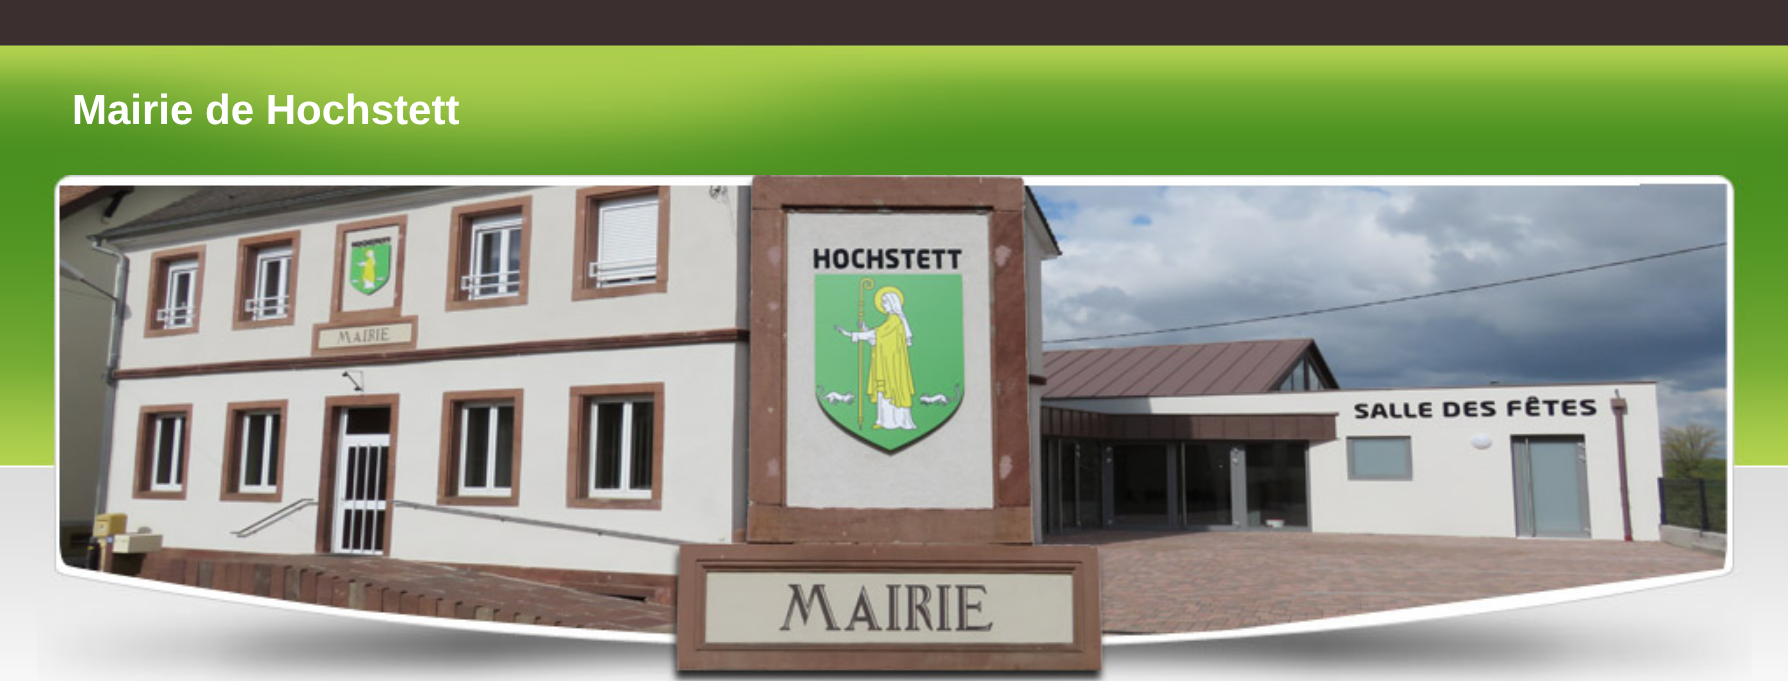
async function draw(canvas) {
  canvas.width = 1788;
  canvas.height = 681;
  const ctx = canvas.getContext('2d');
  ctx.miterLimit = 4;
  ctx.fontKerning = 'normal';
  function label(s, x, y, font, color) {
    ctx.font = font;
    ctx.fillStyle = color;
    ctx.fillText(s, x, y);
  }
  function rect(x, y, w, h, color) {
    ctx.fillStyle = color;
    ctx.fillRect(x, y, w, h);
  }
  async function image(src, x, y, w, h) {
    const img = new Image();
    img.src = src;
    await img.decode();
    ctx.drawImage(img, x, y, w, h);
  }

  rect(0, 0, 1788, 681, '#fff');
  await image('assets/img1.png', 0, 0, 1788, 681);
  await image('assets/img2.png', 54, 44, 1680, 131);
  label('Mairie de Hochstett', 72, 124, 'bold 42px Liberation Sans', '#fff');
  await image('assets/img3.png', 37, 175, 1715, 506);
}

draw(document.querySelector('canvas'));
